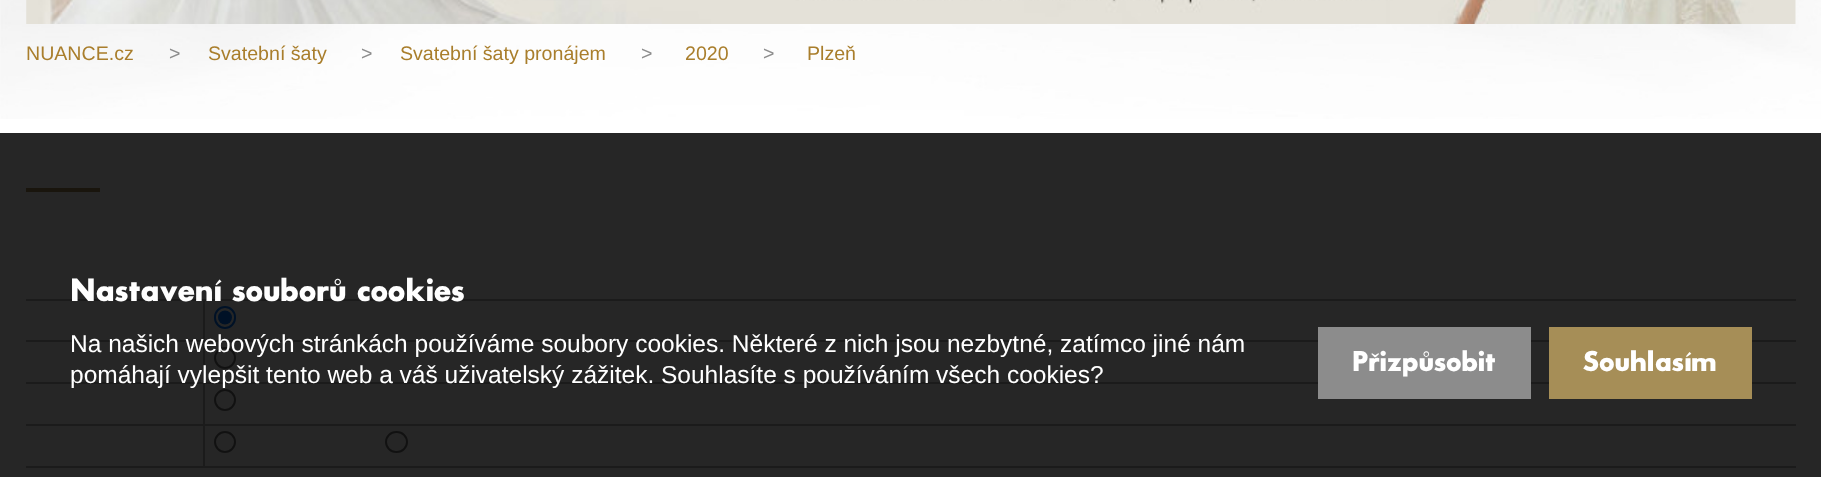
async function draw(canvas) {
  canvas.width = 1821;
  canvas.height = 477;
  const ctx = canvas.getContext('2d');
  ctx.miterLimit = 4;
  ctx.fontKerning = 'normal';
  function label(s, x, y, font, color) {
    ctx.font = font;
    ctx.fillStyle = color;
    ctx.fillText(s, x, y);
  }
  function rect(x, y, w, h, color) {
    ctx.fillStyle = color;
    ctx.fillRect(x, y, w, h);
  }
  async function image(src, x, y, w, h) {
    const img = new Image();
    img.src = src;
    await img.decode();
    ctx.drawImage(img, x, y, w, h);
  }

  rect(0, 0, 1821, 477, '#fff');
  await image('assets/img1.png', 0, 0, 1821, 119);
  await image('assets/img2.png', 26, 0, 1770, 24);
  label('NUANCE.cz', 26, 60, '19.6px Liberation Sans', '#a97e2c');
  label('>', 169, 60, '19.6px Liberation Sans', '#8d8d8d');
  label('Svatební šaty', 208, 60, '19.6px Liberation Sans', '#a97e2c');
  label('>', 361, 60, '19.6px Liberation Sans', '#8d8d8d');
  label('Svatební šaty pronájem', 400, 60, '19.6px Liberation Sans', '#a97e2c');
  label('>', 641, 60, '19.6px Liberation Sans', '#8d8d8d');
  label('2020', 685, 60, '19.6px Liberation Sans', '#a97e2c');
  label('>', 763, 60, '19.6px Liberation Sans', '#8d8d8d');
  label('Plzeň', 807, 60, '19.6px Liberation Sans', '#a97e2c');
  rect(26, 188, 74, 4, '#a98e5a');
  rect(26, 299, 1770, 2, '#b4b4b4');
  rect(26, 340, 1770, 2, '#b4b4b4');
  rect(203, 301, 2, 39, '#b4b4b4');
  ctx.beginPath();
  ctx.roundRect(215, 307, 20, 21, 10);
  ctx.strokeStyle = '#0075ff';
  ctx.lineWidth = 2;
  ctx.stroke();
  ctx.fillStyle = '#0075ff';
  ctx.beginPath();
  ctx.arc(225, 317.5, 7, 0, 2 * Math.PI);
  ctx.fill();
  rect(26, 382, 1770, 2, '#b4b4b4');
  rect(203, 341, 2, 41, '#b4b4b4');
  ctx.beginPath();
  ctx.arc(225, 358, 10, 0, 2 * Math.PI);
  ctx.strokeStyle = '#767676';
  ctx.stroke();
  rect(26, 424, 1770, 2, '#b4b4b4');
  rect(203, 383, 2, 41, '#b4b4b4');
  ctx.beginPath();
  ctx.arc(225, 400, 10, 0, 2 * Math.PI);
  ctx.stroke();
  rect(26, 466, 1770, 2, '#b4b4b4');
  rect(203, 425, 2, 41, '#b4b4b4');
  ctx.beginPath();
  ctx.arc(225, 442, 10, 0, 2 * Math.PI);
  ctx.stroke();
  ctx.beginPath();
  ctx.roundRect(386, 432, 21, 20, 10);
  ctx.stroke();
  rect(0, 133, 1821, 344, '#000000d9');
  label('Nastavení souborů cookies', 70, 301, '500 31.5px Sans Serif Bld', '#fff');
  label('Na našich webových stránkách používáme soubory cookies. Některé z nich jsou nezbytné, zatímco jiné nám', 70, 352, '24.5px Liberation Sans', '#fff');
  label('pomáhají vylepšit tento web a váš uživatelský zážitek. Souhlasíte s používáním všech cookies?', 70, 383, '24.5px Liberation Sans', '#fff');
  rect(1318, 327, 213, 72, '#8c8c8c');
  label('Přizpůsobit', 1352, 371, '500 28px Sans Serif Bld', '#fff');
  rect(1549, 327, 203, 72, '#a68e57');
  label('Souhlasím', 1583, 371, '500 28px Sans Serif Bld', '#fff');
}

draw(document.querySelector('canvas'));
